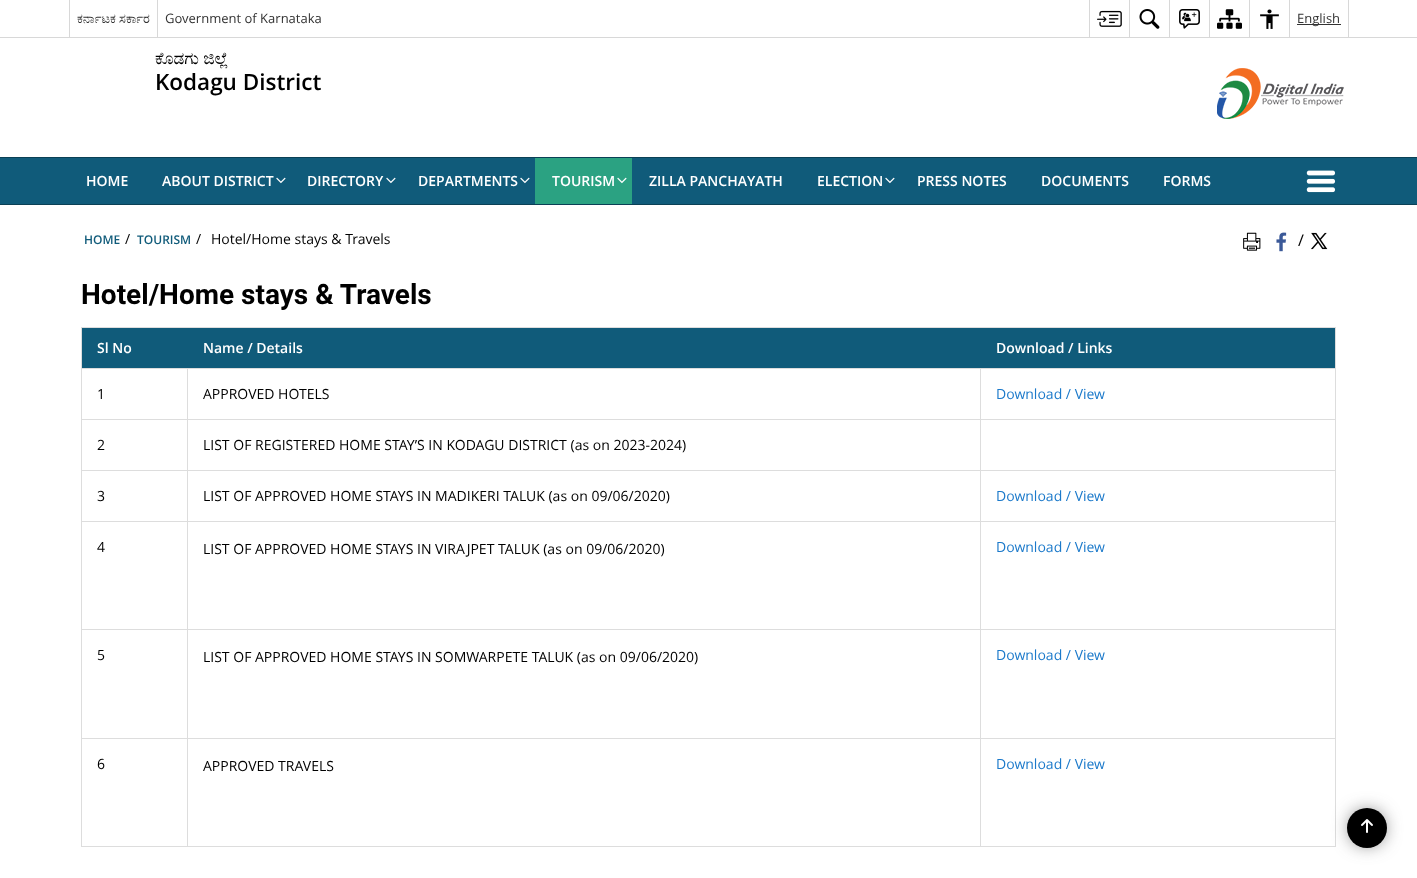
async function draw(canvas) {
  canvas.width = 1417;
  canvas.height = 878;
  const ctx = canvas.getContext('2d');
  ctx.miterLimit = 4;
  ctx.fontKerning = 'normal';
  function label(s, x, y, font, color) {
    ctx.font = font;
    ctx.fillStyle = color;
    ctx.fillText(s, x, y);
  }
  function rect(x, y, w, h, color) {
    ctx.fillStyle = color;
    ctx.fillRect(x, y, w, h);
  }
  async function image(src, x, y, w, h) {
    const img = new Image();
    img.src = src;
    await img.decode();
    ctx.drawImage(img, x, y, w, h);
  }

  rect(0, 0, 1417, 878, '#fff');
  rect(0, 37, 1417, 1, '#d8d8d8');
  rect(69, 0, 1, 37, '#d8d8d8');
  label('ಕರ್ನಾಟಕ ಸರ್ಕಾರ', 77, 23, '13px FreeSerif', '#333');
  rect(157, 0, 1, 37, '#d8d8d8');
  label('Government of Karnataka', 165, 23, '13px Open Sans', '#333');
  rect(1089, 0, 1, 37, '#d8d8d8');
  await image('assets/img1.png', 1097, 10, 25, 17);
  rect(1129, 0, 1, 37, '#d8d8d8');
  await image('assets/img2.png', 1139, 9, 21, 20);
  rect(1169, 0, 1, 37, '#d8d8d8');
  await image('assets/img3.png', 1179, 9, 21, 20);
  rect(1209, 0, 1, 37, '#d8d8d8');
  await image('assets/img4.png', 1217, 9, 25, 20);
  rect(1249, 0, 1, 37, '#d8d8d8');
  await image('assets/img5.png', 1260, 9, 19, 20);
  rect(1348, 0, 1, 37, '#d8d8d8');
  rect(1289, 0, 1, 37, '#d8d8d8');
  rect(1297, 24, 44, 1, '#333');
  label('English', 1297, 23, '13px Open Sans', '#333');
  label('ಕೊಡಗು ಜಿಲ್ಲೆ', 155, 64, '17px FreeSerif', '#000');
  label('Kodagu District', 155, 90, '600 22.5px Open Sans', '#000');
  await image('assets/img6.png', 1217, 68, 127, 51);
  rect(0, 158, 1417, 46, '#105b7a');
  rect(0, 157, 1417, 1, '#0b4055');
  rect(0, 204, 1417, 1, '#0b4055');
  label('HOME', 86, 186, '600 14px Open Sans', '#fff');
  label('ABOUT DISTRICT', 162, 186, '600 14px Open Sans', '#fff');
  await image('assets/img7.png', 276, 177, 10, 7);
  label('DIRECTORY', 307, 186, '600 14px Open Sans', '#fff');
  await image('assets/img7.png', 386, 177, 10, 7);
  label('DEPARTMENTS', 418, 186, '600 14px Open Sans', '#fff');
  await image('assets/img7.png', 520, 177, 10, 7);
  rect(535, 158, 97, 46, '#2ba282');
  label('TOURISM', 552, 186, '600 14px Open Sans', '#fff');
  await image('assets/img8.png', 617, 177, 10, 7);
  label('ZILLA PANCHAYATH', 649, 186, '600 14px Open Sans', '#fff');
  label('ELECTION', 817, 186, '600 14px Open Sans', '#fff');
  await image('assets/img7.png', 885, 177, 10, 7);
  label('PRESS NOTES', 917, 186, '600 14px Open Sans', '#fff');
  label('DOCUMENTS', 1041, 186, '600 14px Open Sans', '#fff');
  label('FORMS', 1163, 186, '600 14px Open Sans', '#fff');
  await image('assets/img9.png', 1306, 170, 30, 23);
  label('HOME', 84, 244, '600 12px Open Sans', '#105b7a');
  label('/', 125, 244, '14px Open Sans', '#000');
  label('TOURISM', 137, 244, '600 12px Open Sans', '#105b7a');
  label('/', 196, 244, '14px Open Sans', '#000');
  label('Hotel/Home stays & Travels', 211, 244, '14px Open Sans', '#000');
  await image('assets/img10.png', 1243, 232, 18, 19);
  await image('assets/img11.png', 1276, 232, 11, 20);
  label('/', 1298, 246, '16px Open Sans', '#000');
  await image('assets/img12.png', 1311, 232, 17, 18);
  label('Hotel/Home stays & Travels', 81, 304, 'bold 28px Roboto', '#000');
  rect(81, 327, 1255, 1, '#ddd');
  rect(1335, 327, 1, 520, '#ddd');
  rect(81, 846, 1255, 1, '#ddd');
  rect(81, 327, 1, 520, '#ddd');
  rect(82, 328, 1253, 40, '#105b7a');
  label('Sl No', 97, 353, '600 14px Open Sans', '#fff');
  label('Name / Details', 203, 353, '600 14px Open Sans', '#fff');
  label('Download / Links', 996, 353, '600 14px Open Sans', '#fff');
  rect(81, 368, 1255, 1, '#ddd');
  rect(81, 419, 1255, 1, '#ddd');
  rect(81, 470, 1255, 1, '#ddd');
  rect(81, 521, 1255, 1, '#ddd');
  rect(81, 629, 1255, 1, '#ddd');
  rect(81, 738, 1255, 1, '#ddd');
  rect(187, 738, 1, 109, '#ddd');
  rect(187, 629, 1, 110, '#ddd');
  rect(187, 521, 1, 109, '#ddd');
  rect(187, 470, 1, 52, '#ddd');
  rect(187, 419, 1, 52, '#ddd');
  rect(187, 368, 1, 52, '#ddd');
  label('1', 97, 399, '14px Open Sans', '#000');
  rect(980, 738, 1, 109, '#ddd');
  rect(980, 629, 1, 110, '#ddd');
  rect(980, 521, 1, 109, '#ddd');
  rect(980, 470, 1, 52, '#ddd');
  rect(980, 419, 1, 52, '#ddd');
  rect(980, 368, 1, 52, '#ddd');
  label('APPROVED HOTELS', 203, 399, '14px Open Sans', '#000');
  label('Download / View', 996, 399, '14px Open Sans', '#1b79ca');
  label('2', 97, 450, '14px Open Sans', '#000');
  label('LIST OF REGISTERED HOME STAY’S IN KODAGU DISTRICT (as on 2023-2024)', 203, 450, '14px Open Sans', '#000');
  label('3', 97, 501, '14px Open Sans', '#000');
  label('LIST OF APPROVED HOME STAYS IN MADIKERI TALUK (as on 09/06/2020)', 203, 501, '14px Open Sans', '#000');
  label('Download / View', 996, 501, '14px Open Sans', '#1b79ca');
  label('4', 97, 552, '14px Open Sans', '#000');
  label('LIST OF APPROVED HOME STAYS IN VIRAJPET TALUK (as on 09/06/2020)', 203, 554, '14px Open Sans', '#000');
  label('Download / View', 996, 552, '14px Open Sans', '#1b79ca');
  label('5', 97, 660, '14px Open Sans', '#000');
  label('LIST OF APPROVED HOME STAYS IN SOMWARPETE TALUK (as on 09/06/2020)', 203, 662, '14px Open Sans', '#000');
  label('Download / View', 996, 660, '14px Open Sans', '#1b79ca');
  label('6', 97, 769, '14px Open Sans', '#000');
  label('APPROVED TRAVELS', 203, 771, '14px Open Sans', '#000');
  label('Download / View', 996, 769, '14px Open Sans', '#1b79ca');
  ctx.fillStyle = '#3c3c3c';
  ctx.filter = 'blur(9.5px)';
  ctx.beginPath();
  ctx.roundRect(1352, 813, 30, 30, 15);
  ctx.fill();
  ctx.filter = 'none';
  ctx.fillStyle = '#000';
  ctx.beginPath();
  ctx.arc(1367, 828, 20, 0, 2 * Math.PI);
  ctx.fill();
  await image('assets/img13.png', 1361, 819, 12, 14);
}

draw(document.querySelector('canvas'));
